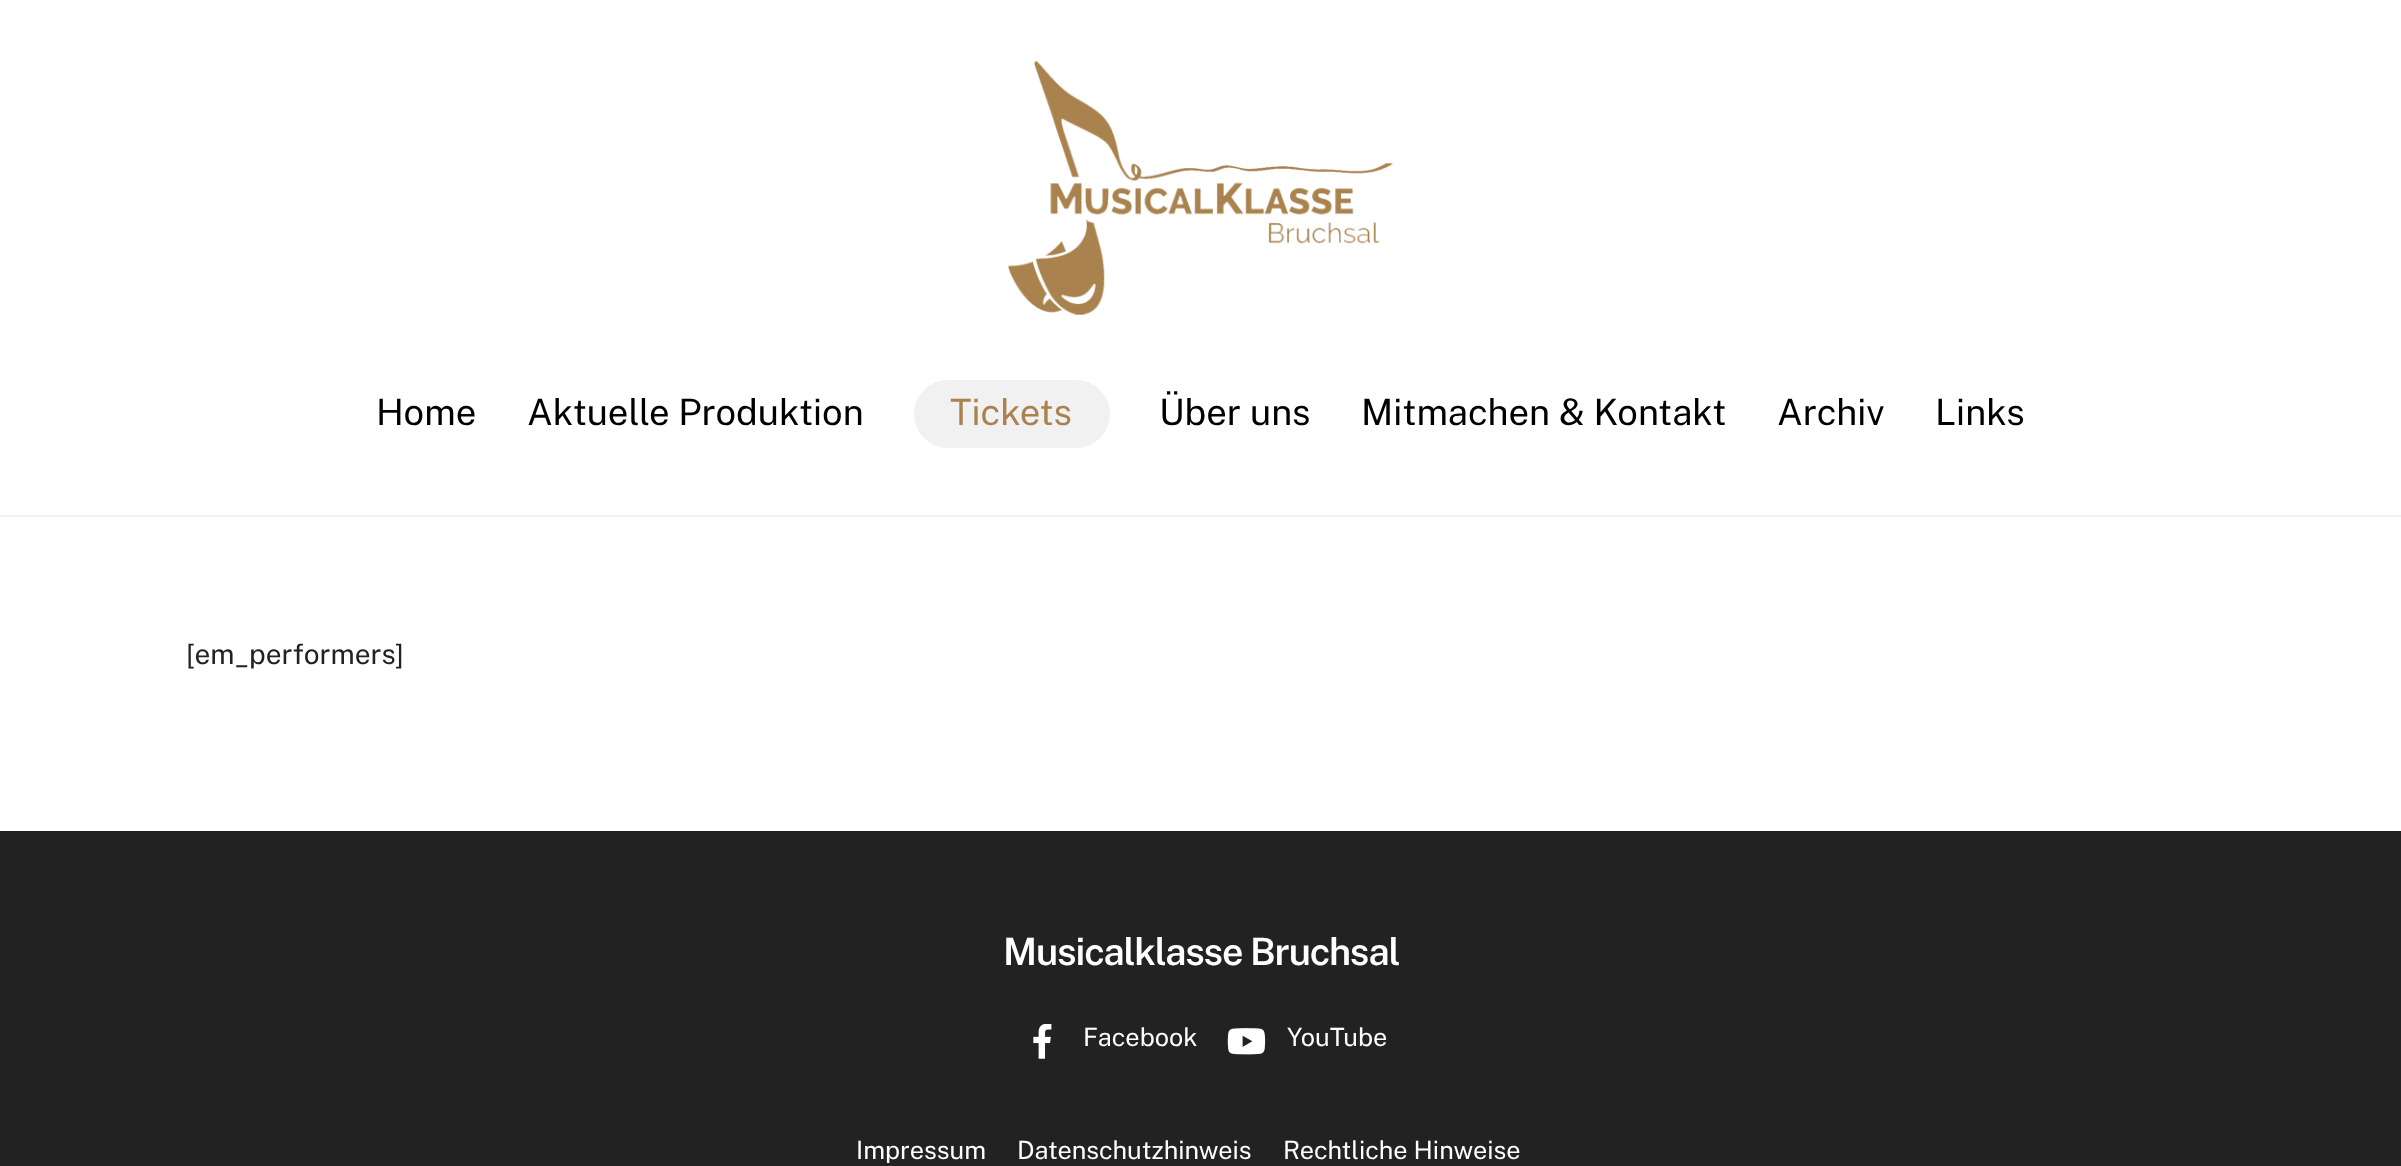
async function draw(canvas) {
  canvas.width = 2401;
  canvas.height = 1166;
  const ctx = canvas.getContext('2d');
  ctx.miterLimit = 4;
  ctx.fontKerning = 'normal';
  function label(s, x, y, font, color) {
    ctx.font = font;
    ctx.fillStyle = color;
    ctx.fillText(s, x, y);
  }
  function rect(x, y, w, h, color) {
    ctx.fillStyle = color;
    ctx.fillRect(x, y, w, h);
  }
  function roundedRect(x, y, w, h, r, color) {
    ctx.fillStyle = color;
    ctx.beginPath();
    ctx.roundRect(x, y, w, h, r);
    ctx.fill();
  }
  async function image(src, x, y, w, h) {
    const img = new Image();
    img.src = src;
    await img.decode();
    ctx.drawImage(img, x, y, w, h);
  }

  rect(0, 0, 2401, 1166, '#fff');
  rect(0, 515, 2401, 2, '#f2f2f2');
  await image('assets/img1.png', 1008, 60, 385, 255);
  label('Home', 376, 425, '36.4px Public Sans', '#000');
  label('Aktuelle Produktion', 527, 425, '36.4px Public Sans', '#000');
  roundedRect(914, 380, 196, 68, 34, '#f1f1f1');
  label('Tickets', 950, 425, '36.4px Public Sans', '#aa824e');
  label('Über uns', 1159, 425, '36.4px Public Sans', '#000');
  label('Mitmachen & Kontakt', 1361, 425, '36.4px Public Sans', '#000');
  label('Archiv', 1777, 425, '36.4px Public Sans', '#000');
  label('Links', 1935, 425, '36.4px Public Sans', '#000');
  label('[em_performers]', 186, 664, '28px Public Sans', '#222');
  rect(0, 833, 2401, 333, '#222');
  rect(0, 831, 2401, 2, '#202020');
  ctx.letterSpacing = '-1.1px';
  label('Musicalklasse Bruchsal', 1003, 965, '600 37.75px Public Sans', '#fff');
  await image('assets/img2.png', 1033, 1024, 19, 35);
  ctx.letterSpacing = '0px';
  label('Facebook', 1083, 1046, '25.25px Public Sans', '#fff');
  await image('assets/img3.png', 1227, 1028, 39, 27);
  label('YouTube', 1287, 1046, '25.25px Public Sans', '#fff');
  label('Impressum', 856, 1159, '25.25px Public Sans', '#fff');
  label('Datenschutzhinweis', 1017, 1159, '25.25px Public Sans', '#fff');
  label('Rechtliche Hinweise', 1283, 1159, '25.25px Public Sans', '#fff');
}

draw(document.querySelector('canvas'));
